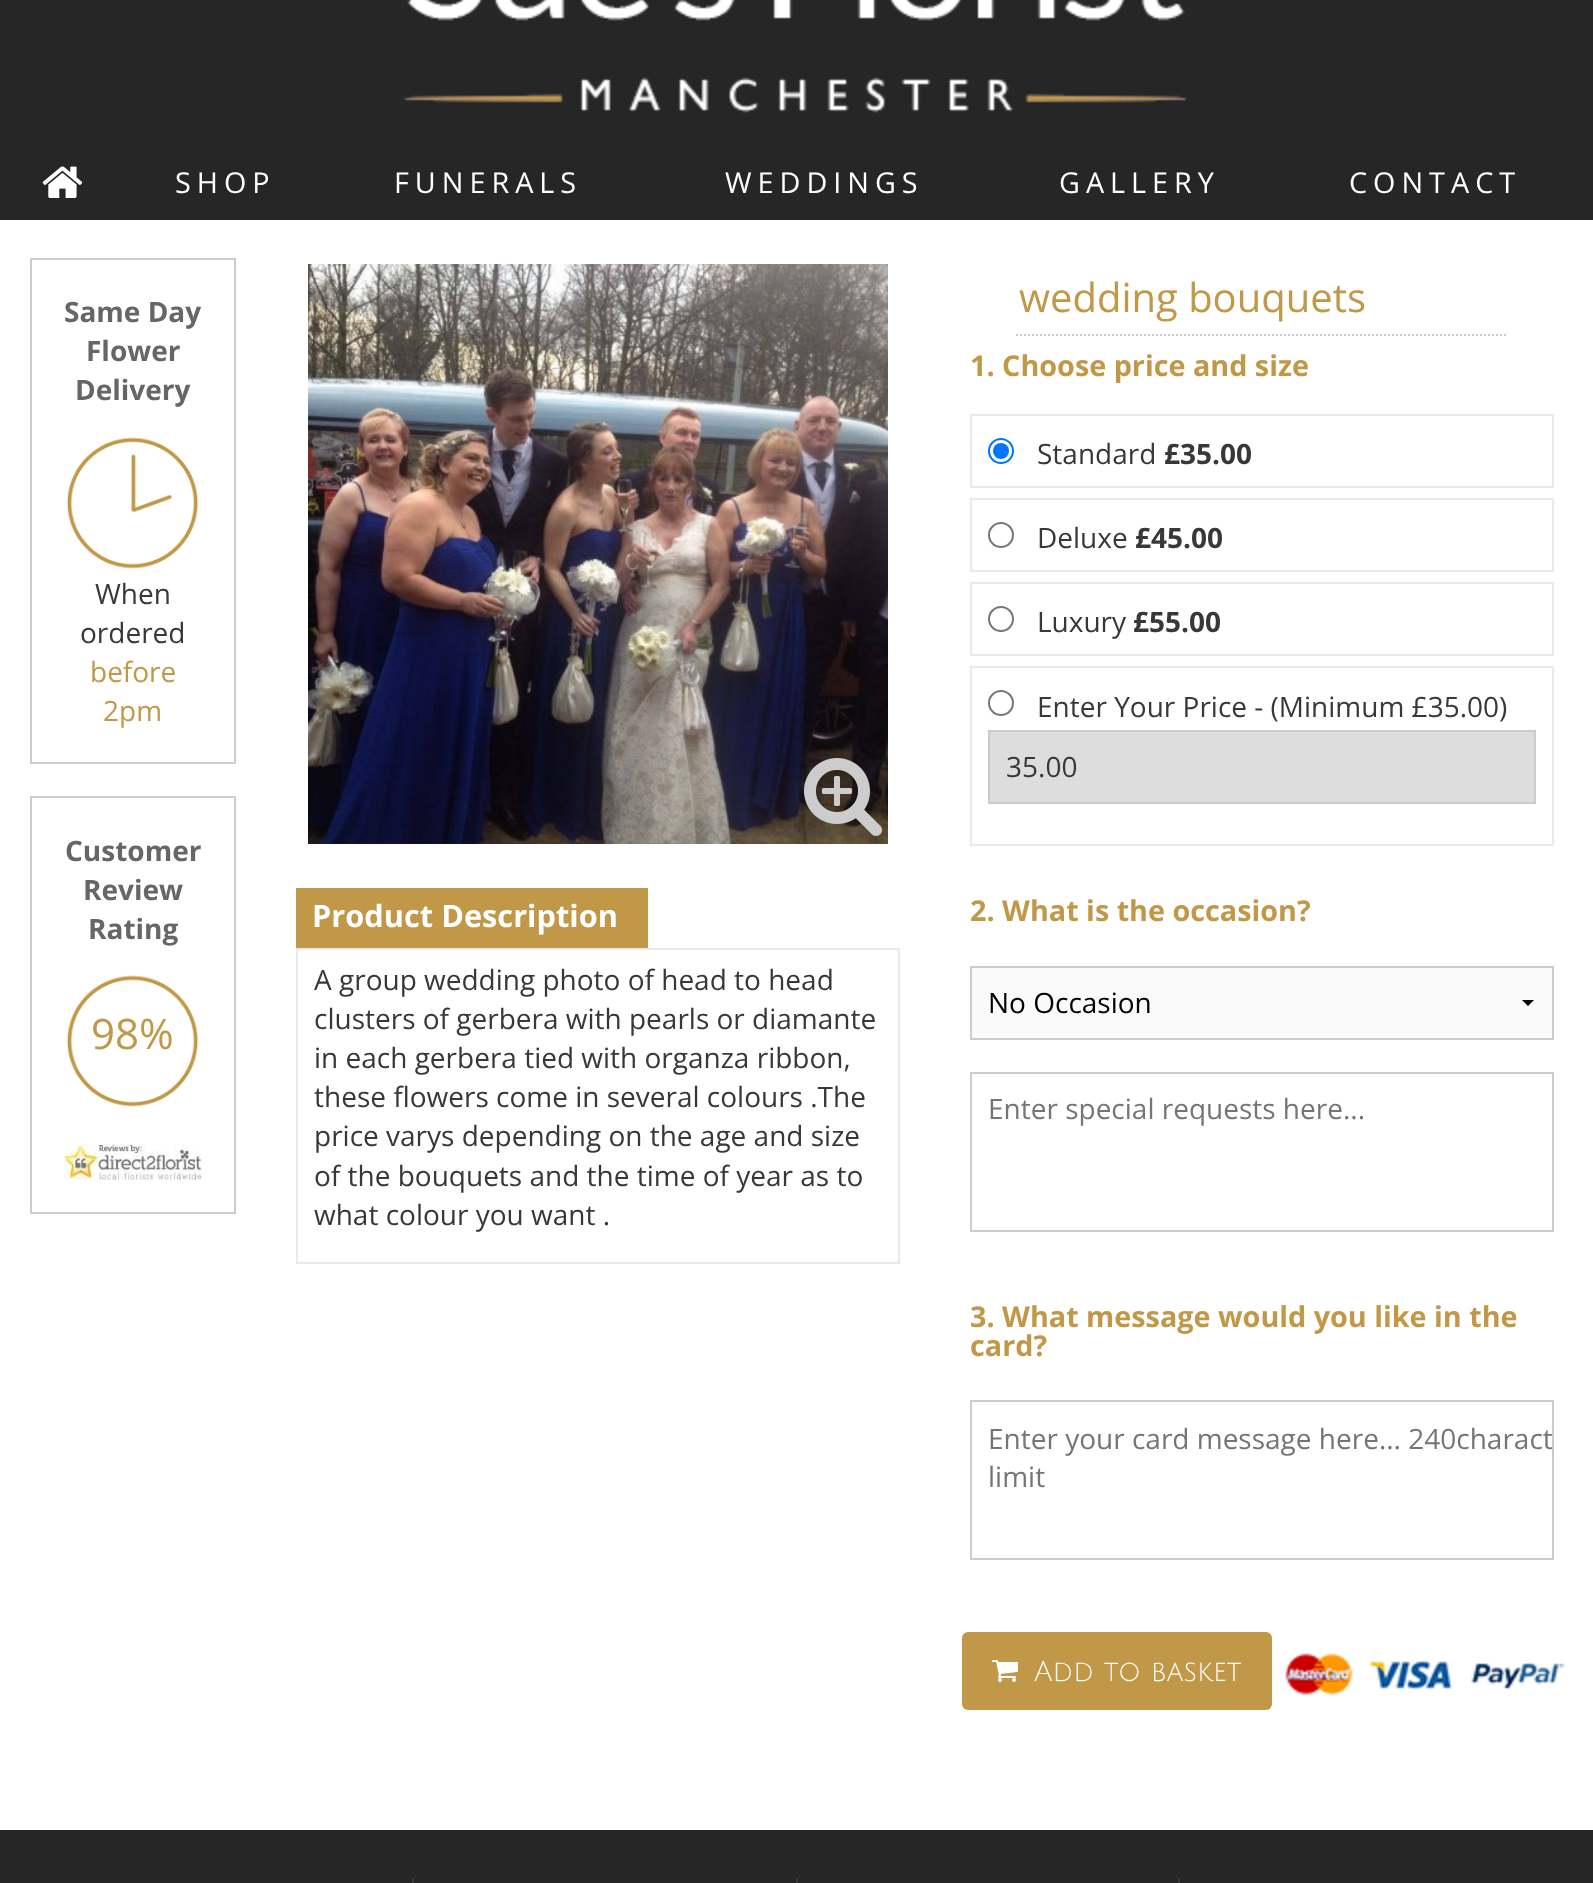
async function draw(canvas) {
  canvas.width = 1593;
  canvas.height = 1883;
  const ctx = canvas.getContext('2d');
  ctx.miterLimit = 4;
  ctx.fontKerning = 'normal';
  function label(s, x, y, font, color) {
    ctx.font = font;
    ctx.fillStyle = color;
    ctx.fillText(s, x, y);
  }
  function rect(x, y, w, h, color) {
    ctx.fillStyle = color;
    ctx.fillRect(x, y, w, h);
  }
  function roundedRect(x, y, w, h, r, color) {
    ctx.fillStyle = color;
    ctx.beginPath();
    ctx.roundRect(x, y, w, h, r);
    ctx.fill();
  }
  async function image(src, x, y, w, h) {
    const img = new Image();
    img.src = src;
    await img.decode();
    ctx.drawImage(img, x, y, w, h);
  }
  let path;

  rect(0, 0, 1593, 1883, '#fff');
  rect(0, 0, 1593, 220, '#262626');
  await image('assets/img1.png', 403, 0, 784, 113);
  await image('assets/img2.png', 42, 166, 41, 32);
  ctx.letterSpacing = '6px';
  label('SHOP', 175, 193, '28.75px Open Sans', '#fff');
  label('FUNERALS', 394, 193, '28.75px Open Sans', '#fff');
  label('WEDDINGS', 725, 193, '28.75px Open Sans', '#fff');
  label('GALLERY', 1059, 193, '28.75px Open Sans', '#fff');
  label('CONTACT', 1349, 193, '28.75px Open Sans', '#fff');
  ctx.strokeStyle = '#ccc';
  ctx.lineWidth = 2;
  ctx.strokeRect(31, 259, 204, 504);
  ctx.letterSpacing = '0px';
  label('Same Day', 64, 322, 'bold 28px Open Sans', '#666');
  label('Flower', 86, 361, 'bold 28px Open Sans', '#666');
  label('Delivery', 75, 400, 'bold 28px Open Sans', '#666');
  rect(66, 437, 133, 132, '#c19847');
  await image('assets/img3.png', 64, 432, 138, 142);
  label('When', 95, 604, '28px Open Sans', '#383838');
  label('ordered', 80, 643, '28px Open Sans', '#383838');
  label('before', 90, 682, '28px Open Sans', '#c19847');
  label('2pm', 103, 721, '28px Open Sans', '#c19847');
  ctx.strokeRect(31, 797, 204, 416);
  label('Customer', 65, 861, 'bold 28px Open Sans', '#666');
  label('Review', 83, 900, 'bold 28px Open Sans', '#666');
  label('Rating', 88, 939, 'bold 28px Open Sans', '#666');
  rect(66, 975, 133, 132, '#c19847');
  await image('assets/img4.png', 64, 970, 138, 142);
  label('98%', 91, 1049, '42px Open Sans', '#c19847');
  await image('assets/img5.png', 64, 1144, 138, 36);
  await image('assets/img6.png', 308, 264, 580, 580);
  await image('assets/img7.png', 804, 758, 78, 78);
  rect(296, 888, 352, 60, '#c19847');
  label('Product Description', 312, 927, 'bold 30.75px Open Sans', '#fff');
  ctx.strokeStyle = '#e9e9e9';
  ctx.strokeRect(297, 949, 602, 314);
  label('A group wedding photo of head to head', 314, 990, '28px Open Sans', '#383838');
  label('clusters of gerbera with pearls or diamante', 314, 1029, '28px Open Sans', '#383838');
  label('in each gerbera tied with organza ribbon,', 314, 1068, '28px Open Sans', '#383838');
  label('these flowers come in several colours .The', 314, 1107, '28px Open Sans', '#383838');
  label('price varys depending on the age and size', 314, 1146, '28px Open Sans', '#383838');
  label('of the bouquets and the time of year as to', 314, 1186, '28px Open Sans', '#383838');
  label('what colour you want .', 314, 1225, '28px Open Sans', '#383838');
  path = new Path2D('M1016 335H1508');
  ctx.strokeStyle = '#ccc';
  ctx.setLineDash([2, 2]);
  ctx.stroke(path);
  label('wedding bouquets', 1019, 312, '40px Open Sans', '#c19847');
  label('1. Choose price and size', 970, 376, 'bold 28.75px Open Sans', '#c19847');
  ctx.strokeStyle = '#e9e9e9';
  ctx.setLineDash([]);
  ctx.strokeRect(971, 415, 582, 72);
  ctx.beginPath();
  ctx.arc(1001, 451, 12, 0, 2 * Math.PI);
  ctx.strokeStyle = '#0075ff';
  ctx.stroke();
  ctx.fillStyle = '#0075ff';
  ctx.beginPath();
  ctx.arc(1001, 451, 8, 0, 2 * Math.PI);
  ctx.fill();
  label('Standard', 1037, 464, '28px Open Sans', '#383838');
  label('£35.00', 1164, 464, 'bold 28px Open Sans', '#383838');
  ctx.strokeStyle = '#e9e9e9';
  ctx.strokeRect(971, 499, 582, 72);
  ctx.beginPath();
  ctx.arc(1001, 535, 12, 0, 2 * Math.PI);
  ctx.strokeStyle = '#767676';
  ctx.stroke();
  label('Deluxe', 1037, 548, '28px Open Sans', '#383838');
  label('£45.00', 1135, 548, 'bold 28px Open Sans', '#383838');
  ctx.strokeStyle = '#e9e9e9';
  ctx.strokeRect(971, 583, 582, 72);
  ctx.beginPath();
  ctx.arc(1001, 619, 12, 0, 2 * Math.PI);
  ctx.strokeStyle = '#767676';
  ctx.stroke();
  label('Luxury', 1037, 632, '28px Open Sans', '#383838');
  label('£55.00', 1133, 632, 'bold 28px Open Sans', '#383838');
  ctx.strokeStyle = '#e9e9e9';
  ctx.strokeRect(971, 667, 582, 178);
  ctx.beginPath();
  ctx.arc(1001, 703, 12, 0, 2 * Math.PI);
  ctx.strokeStyle = '#767676';
  ctx.stroke();
  label('Enter Your Price - (Minimum £35.00)', 1037, 717, '28px Open Sans', '#383838');
  ctx.fillStyle = '#ddd';
  ctx.beginPath();
  ctx.rect(989, 731, 546, 72);
  ctx.fill();
  ctx.strokeStyle = '#ccc';
  ctx.stroke();
  label('35.00', 1006, 777, '28px Open Sans', '#383838');
  label('2. What is the occasion?', 970, 921, 'bold 28.75px Open Sans', '#c19847');
  rect(972, 968, 580, 70, '#fafafa');
  ctx.fillStyle = '#000';
  path = new Path2D('M1534 1000L1528 1006L1522 1000Z');
  ctx.fill(path);
  ctx.strokeRect(971, 967, 582, 72);
  label('No Occasion', 988, 1013, '28px Open Sans', '#000');
  ctx.strokeRect(971, 1073, 582, 158);
  label('Enter special requests here...', 988, 1119, '28px Open Sans', '#757575');
  label('3. What message would you like in the', 970, 1327, 'bold 28.75px Open Sans', '#c19847');
  label('card?', 970, 1356, 'bold 28.75px Open Sans', '#c19847');
  ctx.strokeRect(971, 1401, 582, 158);
  label('Enter your card message here... 240charact', 988, 1449, '28px Open Sans', '#757575');
  label('limit', 988, 1487, '28px Open Sans', '#757575');
  roundedRect(962, 1632, 310, 78, 6, '#c19847');
  await image('assets/img8.png', 992, 1660, 26, 22);
  label('Add to basket', 1034, 1681, '28px Julius Sans One', '#fff');
  await image('assets/img9.png', 1285, 1653, 280, 42);
  rect(0, 1830, 1593, 53, '#262626');
  rect(412, 1878, 2, 5, '#3a3a3a');
  rect(796, 1878, 2, 5, '#3a3a3a');
  rect(1178, 1878, 2, 5, '#3a3a3a');
}

draw(document.querySelector('canvas'));
